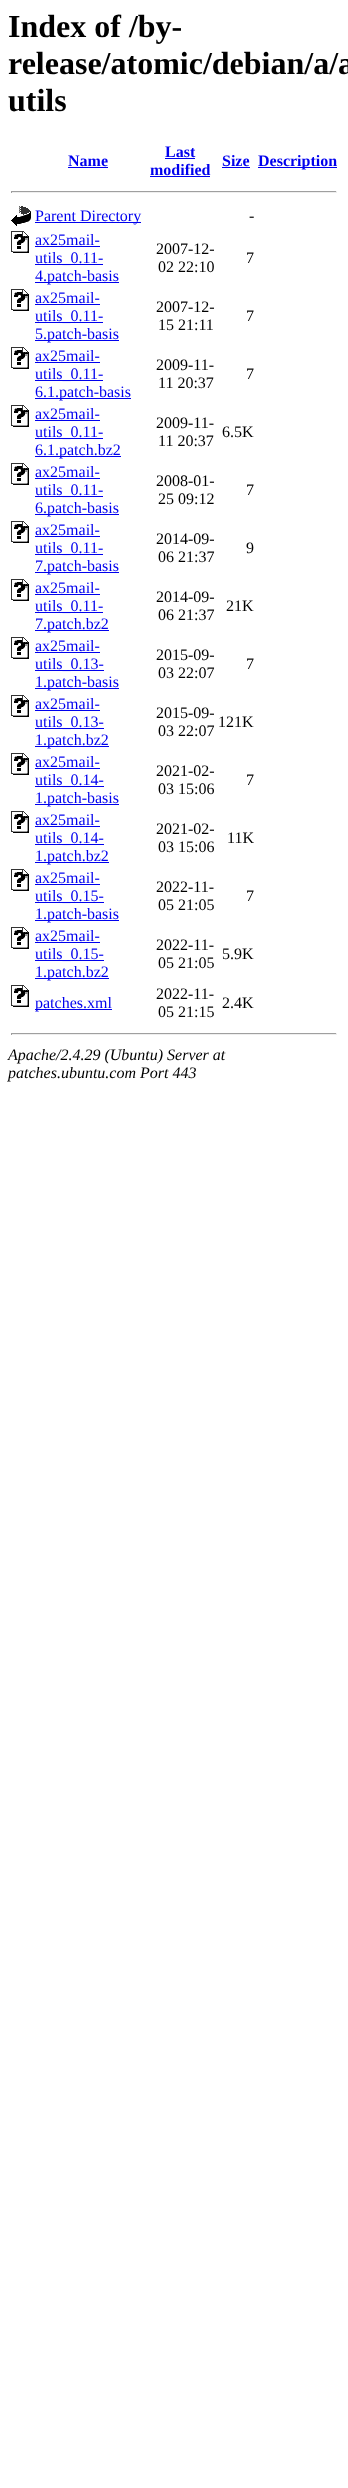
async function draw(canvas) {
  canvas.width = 348;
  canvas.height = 2488;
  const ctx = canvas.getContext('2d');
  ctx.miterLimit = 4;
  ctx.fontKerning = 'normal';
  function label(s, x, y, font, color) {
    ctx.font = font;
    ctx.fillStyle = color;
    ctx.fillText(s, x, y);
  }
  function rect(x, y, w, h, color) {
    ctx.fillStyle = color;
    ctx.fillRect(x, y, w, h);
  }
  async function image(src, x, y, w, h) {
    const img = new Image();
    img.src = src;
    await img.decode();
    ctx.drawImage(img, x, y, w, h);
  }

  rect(0, 0, 348, 2488, '#fff');
  label('Index of /by-', 8, 37, 'bold 32px Liberation Serif', '#000');
  label('release/atomic/debian/a/a', 8, 74, 'bold 32px Liberation Serif', '#000');
  label('utils', 8, 111, 'bold 32px Liberation Serif', '#000');
  label('Name', 68, 166, 'bold 16px Liberation Serif', '#00e');
  rect(68, 167, 40, 1, '#00e');
  label('Last', 165, 157, 'bold 16px Liberation Serif', '#00e');
  rect(165, 158, 30, 1, '#00e');
  label('modified', 150, 175, 'bold 16px Liberation Serif', '#00e');
  rect(150, 176, 60, 1, '#00e');
  label('Size', 222, 166, 'bold 16px Liberation Serif', '#00e');
  rect(222, 167, 28, 1, '#00e');
  rect(258, 167, 79, 1, '#00e');
  label('Description', 258, 166, 'bold 16px Liberation Serif', '#00e');
  rect(11, 191, 326, 1, '#9f9f9f');
  rect(336, 191, 1, 2, '#eee');
  rect(11, 192, 326, 1, '#eee');
  rect(11, 191, 1, 2, '#9f9f9f');
  await image('assets/img1.png', 11, 206, 20, 20);
  rect(35, 222, 106, 1, '#00e');
  label('Parent Directory', 35, 221, '16px Liberation Serif', '#00e');
  label('-', 249, 221, '16px Liberation Serif', '#000');
  await image('assets/img2.png', 11, 231, 18, 22);
  label('ax25mail-', 35, 245, '16px Liberation Serif', '#00e');
  rect(35, 246, 65, 1, '#00e');
  rect(35, 264, 68, 1, '#00e');
  label('utils_0.11-', 35, 263, '16px Liberation Serif', '#00e');
  rect(35, 282, 84, 1, '#00e');
  label('4.patch-basis', 35, 281, '16px Liberation Serif', '#00e');
  label('2007-12-', 156, 254, '16px Liberation Serif', '#000');
  label('02 22:10', 158, 272, '16px Liberation Serif', '#000');
  label('7', 246, 263, '16px Liberation Serif', '#000');
  await image('assets/img2.png', 11, 289, 18, 22);
  label('ax25mail-', 35, 303, '16px Liberation Serif', '#00e');
  rect(35, 304, 65, 1, '#00e');
  rect(35, 322, 68, 1, '#00e');
  label('utils_0.11-', 35, 321, '16px Liberation Serif', '#00e');
  rect(35, 340, 84, 1, '#00e');
  label('5.patch-basis', 35, 339, '16px Liberation Serif', '#00e');
  label('2007-12-', 156, 312, '16px Liberation Serif', '#000');
  label('15 21:11', 158, 330, '16px Liberation Serif', '#000');
  label('7', 246, 321, '16px Liberation Serif', '#000');
  await image('assets/img2.png', 11, 347, 18, 22);
  label('ax25mail-', 35, 361, '16px Liberation Serif', '#00e');
  rect(35, 362, 65, 1, '#00e');
  rect(35, 380, 68, 1, '#00e');
  label('utils_0.11-', 35, 379, '16px Liberation Serif', '#00e');
  rect(35, 398, 96, 1, '#00e');
  label('6.1.patch-basis', 35, 397, '16px Liberation Serif', '#00e');
  label('2009-11-', 156, 370, '16px Liberation Serif', '#000');
  label('11 20:37', 158, 388, '16px Liberation Serif', '#000');
  label('7', 246, 379, '16px Liberation Serif', '#000');
  await image('assets/img2.png', 11, 405, 18, 22);
  label('ax25mail-', 35, 419, '16px Liberation Serif', '#00e');
  rect(35, 420, 65, 1, '#00e');
  rect(35, 438, 68, 1, '#00e');
  label('utils_0.11-', 35, 437, '16px Liberation Serif', '#00e');
  rect(35, 456, 86, 1, '#00e');
  label('6.1.patch.bz2', 35, 455, '16px Liberation Serif', '#00e');
  label('2009-11-', 156, 428, '16px Liberation Serif', '#000');
  label('11 20:37', 158, 446, '16px Liberation Serif', '#000');
  label('6.5K', 222, 437, '16px Liberation Serif', '#000');
  await image('assets/img2.png', 11, 463, 18, 22);
  label('ax25mail-', 35, 477, '16px Liberation Serif', '#00e');
  rect(35, 478, 65, 1, '#00e');
  rect(35, 496, 68, 1, '#00e');
  label('utils_0.11-', 35, 495, '16px Liberation Serif', '#00e');
  rect(35, 514, 84, 1, '#00e');
  label('6.patch-basis', 35, 513, '16px Liberation Serif', '#00e');
  label('2008-01-', 156, 486, '16px Liberation Serif', '#000');
  label('25 09:12', 158, 504, '16px Liberation Serif', '#000');
  label('7', 246, 495, '16px Liberation Serif', '#000');
  await image('assets/img2.png', 11, 521, 18, 22);
  label('ax25mail-', 35, 535, '16px Liberation Serif', '#00e');
  rect(35, 536, 65, 1, '#00e');
  rect(35, 554, 68, 1, '#00e');
  label('utils_0.11-', 35, 553, '16px Liberation Serif', '#00e');
  rect(35, 572, 84, 1, '#00e');
  label('7.patch-basis', 35, 571, '16px Liberation Serif', '#00e');
  label('2014-09-', 156, 544, '16px Liberation Serif', '#000');
  label('06 21:37', 158, 562, '16px Liberation Serif', '#000');
  label('9', 246, 553, '16px Liberation Serif', '#000');
  await image('assets/img2.png', 11, 579, 18, 22);
  label('ax25mail-', 35, 593, '16px Liberation Serif', '#00e');
  rect(35, 594, 65, 1, '#00e');
  rect(35, 612, 68, 1, '#00e');
  label('utils_0.11-', 35, 611, '16px Liberation Serif', '#00e');
  rect(35, 630, 74, 1, '#00e');
  label('7.patch.bz2', 35, 629, '16px Liberation Serif', '#00e');
  label('2014-09-', 156, 602, '16px Liberation Serif', '#000');
  label('06 21:37', 158, 620, '16px Liberation Serif', '#000');
  label('21K', 226, 611, '16px Liberation Serif', '#000');
  await image('assets/img2.png', 11, 637, 18, 22);
  label('ax25mail-', 35, 651, '16px Liberation Serif', '#00e');
  rect(35, 652, 65, 1, '#00e');
  rect(35, 670, 69, 1, '#00e');
  label('utils_0.13-', 35, 669, '16px Liberation Serif', '#00e');
  rect(35, 688, 84, 1, '#00e');
  label('1.patch-basis', 35, 687, '16px Liberation Serif', '#00e');
  label('2015-09-', 156, 660, '16px Liberation Serif', '#000');
  label('03 22:07', 158, 678, '16px Liberation Serif', '#000');
  label('7', 246, 669, '16px Liberation Serif', '#000');
  await image('assets/img2.png', 11, 695, 18, 22);
  label('ax25mail-', 35, 709, '16px Liberation Serif', '#00e');
  rect(35, 710, 65, 1, '#00e');
  rect(35, 728, 69, 1, '#00e');
  label('utils_0.13-', 35, 727, '16px Liberation Serif', '#00e');
  rect(35, 746, 74, 1, '#00e');
  label('1.patch.bz2', 35, 745, '16px Liberation Serif', '#00e');
  label('2015-09-', 156, 718, '16px Liberation Serif', '#000');
  label('03 22:07', 158, 736, '16px Liberation Serif', '#000');
  label('121K', 218, 727, '16px Liberation Serif', '#000');
  await image('assets/img2.png', 11, 753, 18, 22);
  label('ax25mail-', 35, 767, '16px Liberation Serif', '#00e');
  rect(35, 768, 65, 1, '#00e');
  rect(35, 786, 69, 1, '#00e');
  label('utils_0.14-', 35, 785, '16px Liberation Serif', '#00e');
  rect(35, 804, 84, 1, '#00e');
  label('1.patch-basis', 35, 803, '16px Liberation Serif', '#00e');
  label('2021-02-', 156, 776, '16px Liberation Serif', '#000');
  label('03 15:06', 158, 794, '16px Liberation Serif', '#000');
  label('7', 246, 785, '16px Liberation Serif', '#000');
  await image('assets/img2.png', 11, 811, 18, 22);
  label('ax25mail-', 35, 825, '16px Liberation Serif', '#00e');
  rect(35, 826, 65, 1, '#00e');
  rect(35, 844, 69, 1, '#00e');
  label('utils_0.14-', 35, 843, '16px Liberation Serif', '#00e');
  rect(35, 862, 74, 1, '#00e');
  label('1.patch.bz2', 35, 861, '16px Liberation Serif', '#00e');
  label('2021-02-', 156, 834, '16px Liberation Serif', '#000');
  label('03 15:06', 158, 852, '16px Liberation Serif', '#000');
  label('11K', 227, 843, '16px Liberation Serif', '#000');
  await image('assets/img2.png', 11, 869, 18, 22);
  label('ax25mail-', 35, 883, '16px Liberation Serif', '#00e');
  rect(35, 884, 65, 1, '#00e');
  rect(35, 902, 69, 1, '#00e');
  label('utils_0.15-', 35, 901, '16px Liberation Serif', '#00e');
  rect(35, 920, 84, 1, '#00e');
  label('1.patch-basis', 35, 919, '16px Liberation Serif', '#00e');
  label('2022-11-', 156, 892, '16px Liberation Serif', '#000');
  label('05 21:05', 158, 910, '16px Liberation Serif', '#000');
  label('7', 246, 901, '16px Liberation Serif', '#000');
  await image('assets/img2.png', 11, 927, 18, 22);
  label('ax25mail-', 35, 941, '16px Liberation Serif', '#00e');
  rect(35, 942, 65, 1, '#00e');
  rect(35, 960, 69, 1, '#00e');
  label('utils_0.15-', 35, 959, '16px Liberation Serif', '#00e');
  rect(35, 978, 74, 1, '#00e');
  label('1.patch.bz2', 35, 977, '16px Liberation Serif', '#00e');
  label('2022-11-', 156, 950, '16px Liberation Serif', '#000');
  label('05 21:05', 158, 968, '16px Liberation Serif', '#000');
  label('5.9K', 222, 959, '16px Liberation Serif', '#000');
  await image('assets/img2.png', 11, 985, 18, 22);
  rect(35, 1009, 77, 1, '#00e');
  label('patches.xml', 35, 1008, '16px Liberation Serif', '#00e');
  label('2022-11-', 156, 999, '16px Liberation Serif', '#000');
  label('05 21:15', 158, 1017, '16px Liberation Serif', '#000');
  label('2.4K', 222, 1008, '16px Liberation Serif', '#000');
  rect(11, 1033, 326, 1, '#9f9f9f');
  rect(336, 1033, 1, 2, '#eee');
  rect(11, 1034, 326, 1, '#eee');
  rect(11, 1033, 1, 2, '#9f9f9f');
  label('Apache/2.4.29 (Ubuntu) Server at', 8, 1060, 'italic 16px Liberation Serif', '#000');
  label('patches.ubuntu.com Port 443', 8, 1078, 'italic 16px Liberation Serif', '#000');
}

draw(document.querySelector('canvas'));
